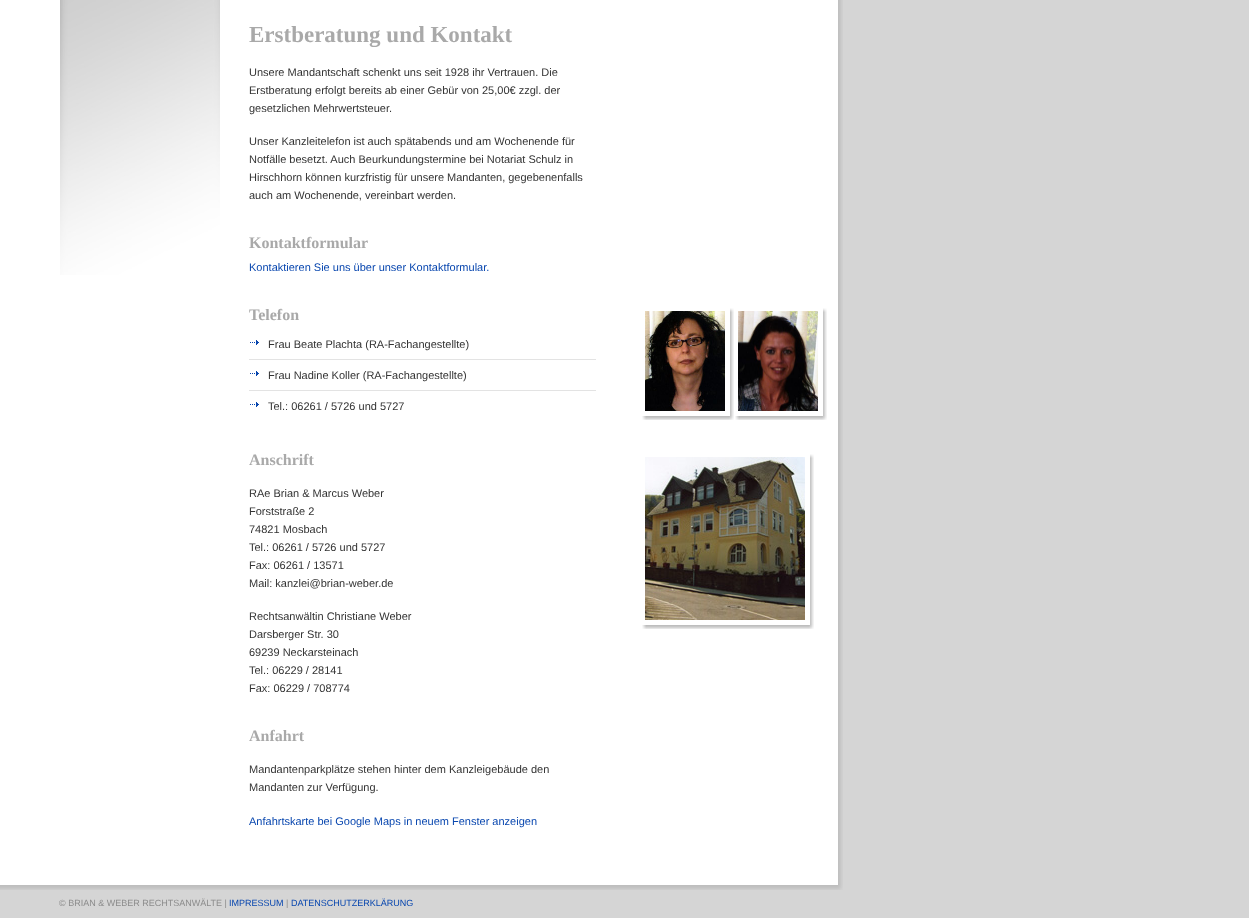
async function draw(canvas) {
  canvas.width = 1249;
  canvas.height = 918;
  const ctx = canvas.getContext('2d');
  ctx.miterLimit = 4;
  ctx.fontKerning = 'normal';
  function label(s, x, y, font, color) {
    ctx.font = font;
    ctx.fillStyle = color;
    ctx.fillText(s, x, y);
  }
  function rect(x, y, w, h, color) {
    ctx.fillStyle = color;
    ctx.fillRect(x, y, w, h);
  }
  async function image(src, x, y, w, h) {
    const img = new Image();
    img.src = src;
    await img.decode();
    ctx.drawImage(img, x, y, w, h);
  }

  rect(0, 0, 1249, 918, '#d5d5d5');
  await image('assets/img1.png', 0, 0, 843, 890);
  await image('assets/img2.png', 60, 0, 160, 275);
  label('Erstberatung und Kontakt', 249, 42, 'bold 23px Liberation Serif', '#a9a9a9');
  label('Unsere Mandantschaft schenkt uns seit 1928 ihr Vertrauen. Die', 249, 76, '11px Liberation Sans', '#333');
  label('Erstberatung erfolgt bereits ab einer Gebür von 25,00€ zzgl. der', 249, 94, '11px Liberation Sans', '#333');
  label('gesetzlichen Mehrwertsteuer.', 249, 112, '11px Liberation Sans', '#333');
  label('Unser Kanzleitelefon ist auch spätabends und am Wochenende für', 249, 145, '11px Liberation Sans', '#333');
  label('Notfälle besetzt. Auch Beurkundungstermine bei Notariat Schulz in', 249, 163, '11px Liberation Sans', '#333');
  label('Hirschhorn können kurzfristig für unsere Mandanten, gegebenenfalls', 249, 181, '11px Liberation Sans', '#333');
  label('auch am Wochenende, vereinbart werden.', 249, 199, '11px Liberation Sans', '#333');
  label('Kontaktformular', 249, 248, 'bold 16px Liberation Serif', '#a9a9a9');
  label('Kontaktieren Sie uns über unser Kontaktformular.', 249, 271, '11px Liberation Sans', '#0947af');
  label('Telefon', 249, 320, 'bold 16px Liberation Serif', '#a9a9a9');
  await image('assets/img3.png', 642, 308, 92, 112);
  await image('assets/img4.png', 641, 307, 93, 113);
  await image('assets/img5.png', 645, 311, 80, 100);
  await image('assets/img3.png', 735, 308, 92, 112);
  await image('assets/img4.png', 734, 307, 93, 113);
  await image('assets/img6.png', 738, 311, 80, 100);
  await image('assets/img7.png', 250, 340, 9, 5);
  label('Frau Beate Plachta (RA-Fachangestellte)', 268, 348, '11px Liberation Sans', '#333');
  await image('assets/img7.png', 250, 371, 9, 5);
  rect(249, 359, 347, 1, '#e3e3e3');
  label('Frau Nadine Koller (RA-Fachangestellte)', 268, 379, '11px Liberation Sans', '#333');
  await image('assets/img7.png', 250, 402, 9, 5);
  rect(249, 390, 347, 1, '#e3e3e3');
  label('Tel.: 06261 / 5726 und 5727', 268, 410, '11px Liberation Sans', '#333');
  label('Anschrift', 249, 465, 'bold 16px Liberation Serif', '#a9a9a9');
  await image('assets/img8.png', 642, 454, 172, 175);
  await image('assets/img9.png', 641, 453, 173, 176);
  await image('assets/img10.png', 645, 457, 160, 163);
  label('RAe Brian & Marcus Weber', 249, 497, '11px Liberation Sans', '#333');
  label('Forststraße 2', 249, 515, '11px Liberation Sans', '#333');
  label('74821 Mosbach', 249, 533, '11px Liberation Sans', '#333');
  label('Tel.: 06261 / 5726 und 5727', 249, 551, '11px Liberation Sans', '#333');
  label('Fax: 06261 / 13571', 249, 569, '11px Liberation Sans', '#333');
  label('Mail: kanzlei@brian-weber.de', 249, 587, '11px Liberation Sans', '#333');
  label('Rechtsanwältin Christiane Weber', 249, 620, '11px Liberation Sans', '#333');
  label('Darsberger Str. 30', 249, 638, '11px Liberation Sans', '#333');
  label('69239 Neckarsteinach', 249, 656, '11px Liberation Sans', '#333');
  label('Tel.: 06229 / 28141', 249, 674, '11px Liberation Sans', '#333');
  label('Fax: 06229 / 708774', 249, 692, '11px Liberation Sans', '#333');
  label('Anfahrt', 249, 741, 'bold 16px Liberation Serif', '#a9a9a9');
  label('Mandantenparkplätze stehen hinter dem Kanzleigebäude den', 249, 773, '11px Liberation Sans', '#333');
  label('Mandanten zur Verfügung.', 249, 791, '11px Liberation Sans', '#333');
  label('Anfahrtskarte bei Google Maps in neuem Fenster anzeigen', 249, 825, '11px Liberation Sans', '#0947af');
  label('© BRIAN & WEBER RECHTSANWÄLTE |', 59, 906, '9px Liberation Sans', '#8c8c8c');
  label('IMPRESSUM', 229, 906, '9px Liberation Sans', '#0947af');
  label('|', 286, 906, '9px Liberation Sans', '#8c8c8c');
  label('DATENSCHUTZERKLÄRUNG', 291, 906, '9px Liberation Sans', '#0947af');
}

draw(document.querySelector('canvas'));
